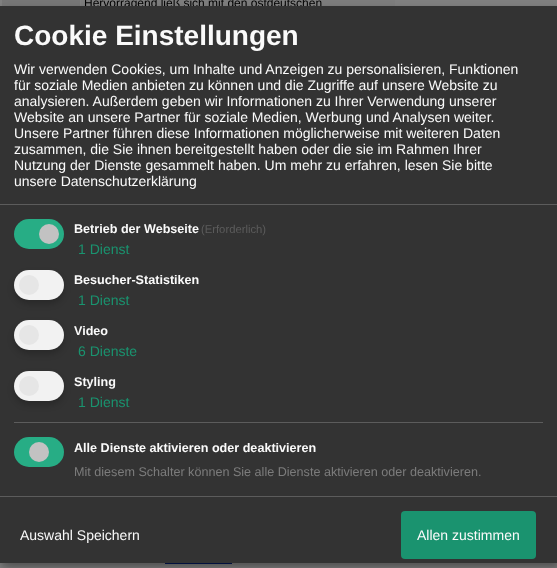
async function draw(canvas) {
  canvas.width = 557;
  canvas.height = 568;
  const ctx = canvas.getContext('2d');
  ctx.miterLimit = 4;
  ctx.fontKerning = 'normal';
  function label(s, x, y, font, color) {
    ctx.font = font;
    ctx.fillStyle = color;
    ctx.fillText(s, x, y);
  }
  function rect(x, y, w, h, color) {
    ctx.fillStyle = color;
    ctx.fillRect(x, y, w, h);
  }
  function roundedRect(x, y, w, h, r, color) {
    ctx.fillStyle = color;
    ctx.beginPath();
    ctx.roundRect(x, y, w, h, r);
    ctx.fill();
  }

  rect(0, 0, 557, 568, '#808080');
  rect(2, 0, 78, 6, '#777');
  rect(81, 0, 314, 6, '#7d7d7d');
  label('Hervorragend ließ sich mit den ostdeutschen', 84, 7, '12px Liberation Sans', '#000');
  rect(165, 563, 67, 1, '#041858');
  ctx.fillStyle = '#00000030';
  ctx.filter = 'blur(5px)';
  ctx.beginPath();
  ctx.rect(5, 11, 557, 557);
  ctx.fill();
  ctx.filter = 'none';
  ctx.fillStyle = '#00000033';
  ctx.filter = 'blur(3px)';
  ctx.beginPath();
  ctx.rect(0, 10, 557, 557);
  ctx.fill();
  ctx.filter = 'none';
  rect(0, 6, 557, 557, '#333');
  rect(0, 204, 557, 1, '#5c5c5c');
  label('Cookie Einstellungen', 14, 45, 'bold 28px Liberation Sans', '#fafafa');
  label('Wir verwenden Cookies, um Inhalte und Anzeigen zu personalisieren, Funktionen', 14, 74, '14px Liberation Sans', '#fafafa');
  label('für soziale Medien anbieten zu können und die Zugriffe auf unsere Website zu', 14, 90, '14px Liberation Sans', '#fafafa');
  label('analysieren. Außerdem geben wir Informationen zu Ihrer Verwendung unserer', 14, 106, '14px Liberation Sans', '#fafafa');
  label('Website an unsere Partner für soziale Medien, Werbung und Analysen weiter.', 14, 122, '14px Liberation Sans', '#fafafa');
  label('Unsere Partner führen diese Informationen möglicherweise mit weiteren Daten', 14, 138, '14px Liberation Sans', '#fafafa');
  label('zusammen, die Sie ihnen bereitgestellt haben oder die sie im Rahmen Ihrer', 14, 154, '14px Liberation Sans', '#fafafa');
  label('Nutzung der Dienste gesammelt haben. Um mehr zu erfahren, lesen Sie bitte', 14, 170, '14px Liberation Sans', '#fafafa');
  label('unsere Datenschutzerklärung', 14, 186, '14px Liberation Sans', '#fafafa');
  roundedRect(14, 219, 50, 30, 15, '#27ad85');
  ctx.fillStyle = '#c2c2c2';
  ctx.beginPath();
  ctx.arc(49, 234, 10, 0, 2 * Math.PI);
  ctx.fill();
  label('Betrieb der Webseite', 74, 233, 'bold 12.6px Liberation Sans', '#fafafa');
  label('(Erforderlich)', 201, 233, '11.25px Liberation Sans', '#5c5c5c');
  label('1 Dienst', 78, 254, '14px Liberation Sans', '#1a936f');
  ctx.fillStyle = '#00000033';
  ctx.filter = 'blur(3px)';
  ctx.beginPath();
  ctx.roundRect(14, 274, 50, 30, 15);
  ctx.fill();
  ctx.filter = 'none';
  roundedRect(14, 270, 50, 30, 15, '#f2f2f2');
  ctx.fillStyle = '#e6e6e6';
  ctx.beginPath();
  ctx.arc(29, 285, 10, 0, 2 * Math.PI);
  ctx.fill();
  label('Besucher-Statistiken', 74, 284, 'bold 12.6px Liberation Sans', '#fafafa');
  label('1 Dienst', 78, 305, '14px Liberation Sans', '#1a936f');
  ctx.fillStyle = '#00000033';
  ctx.filter = 'blur(3px)';
  ctx.beginPath();
  ctx.roundRect(14, 324, 50, 30, 15);
  ctx.fill();
  ctx.filter = 'none';
  roundedRect(14, 320, 50, 30, 15, '#f2f2f2');
  ctx.fillStyle = '#e6e6e6';
  ctx.beginPath();
  ctx.arc(29, 335, 10, 0, 2 * Math.PI);
  ctx.fill();
  label('Video', 74, 335, 'bold 12.6px Liberation Sans', '#fafafa');
  label('6 Dienste', 78, 356, '14px Liberation Sans', '#1a936f');
  ctx.fillStyle = '#00000033';
  ctx.filter = 'blur(3px)';
  ctx.beginPath();
  ctx.roundRect(14, 375, 50, 30, 15);
  ctx.fill();
  ctx.filter = 'none';
  roundedRect(14, 371, 50, 30, 15, '#f2f2f2');
  ctx.fillStyle = '#e6e6e6';
  ctx.beginPath();
  ctx.arc(29, 386, 10, 0, 2 * Math.PI);
  ctx.fill();
  label('Styling', 74, 386, 'bold 12.6px Liberation Sans', '#fafafa');
  label('1 Dienst', 78, 407, '14px Liberation Sans', '#1a936f');
  rect(14, 422, 529, 1, '#5c5c5c');
  roundedRect(14, 437, 50, 30, 15, '#27ad85');
  ctx.fillStyle = '#c2c2c2';
  ctx.beginPath();
  ctx.arc(39, 452, 10, 0, 2 * Math.PI);
  ctx.fill();
  label('Alle Dienste aktivieren oder deaktivieren', 74, 452, 'bold 12.6px Liberation Sans', '#fafafa');
  label('Mit diesem Schalter können Sie alle Dienste aktivieren oder deaktivieren.', 74, 476, '12.6px Liberation Sans', '#7c7c7c');
  rect(0, 496, 557, 1, '#5c5c5c');
  label('Auswahl Speichern', 20, 540, '14px Liberation Sans', '#fafafa');
  roundedRect(401, 511, 135, 48, 4, '#1a936f');
  label('Allen zustimmen', 417, 540, '14px Liberation Sans', '#fafafa');
}

draw(document.querySelector('canvas'));
